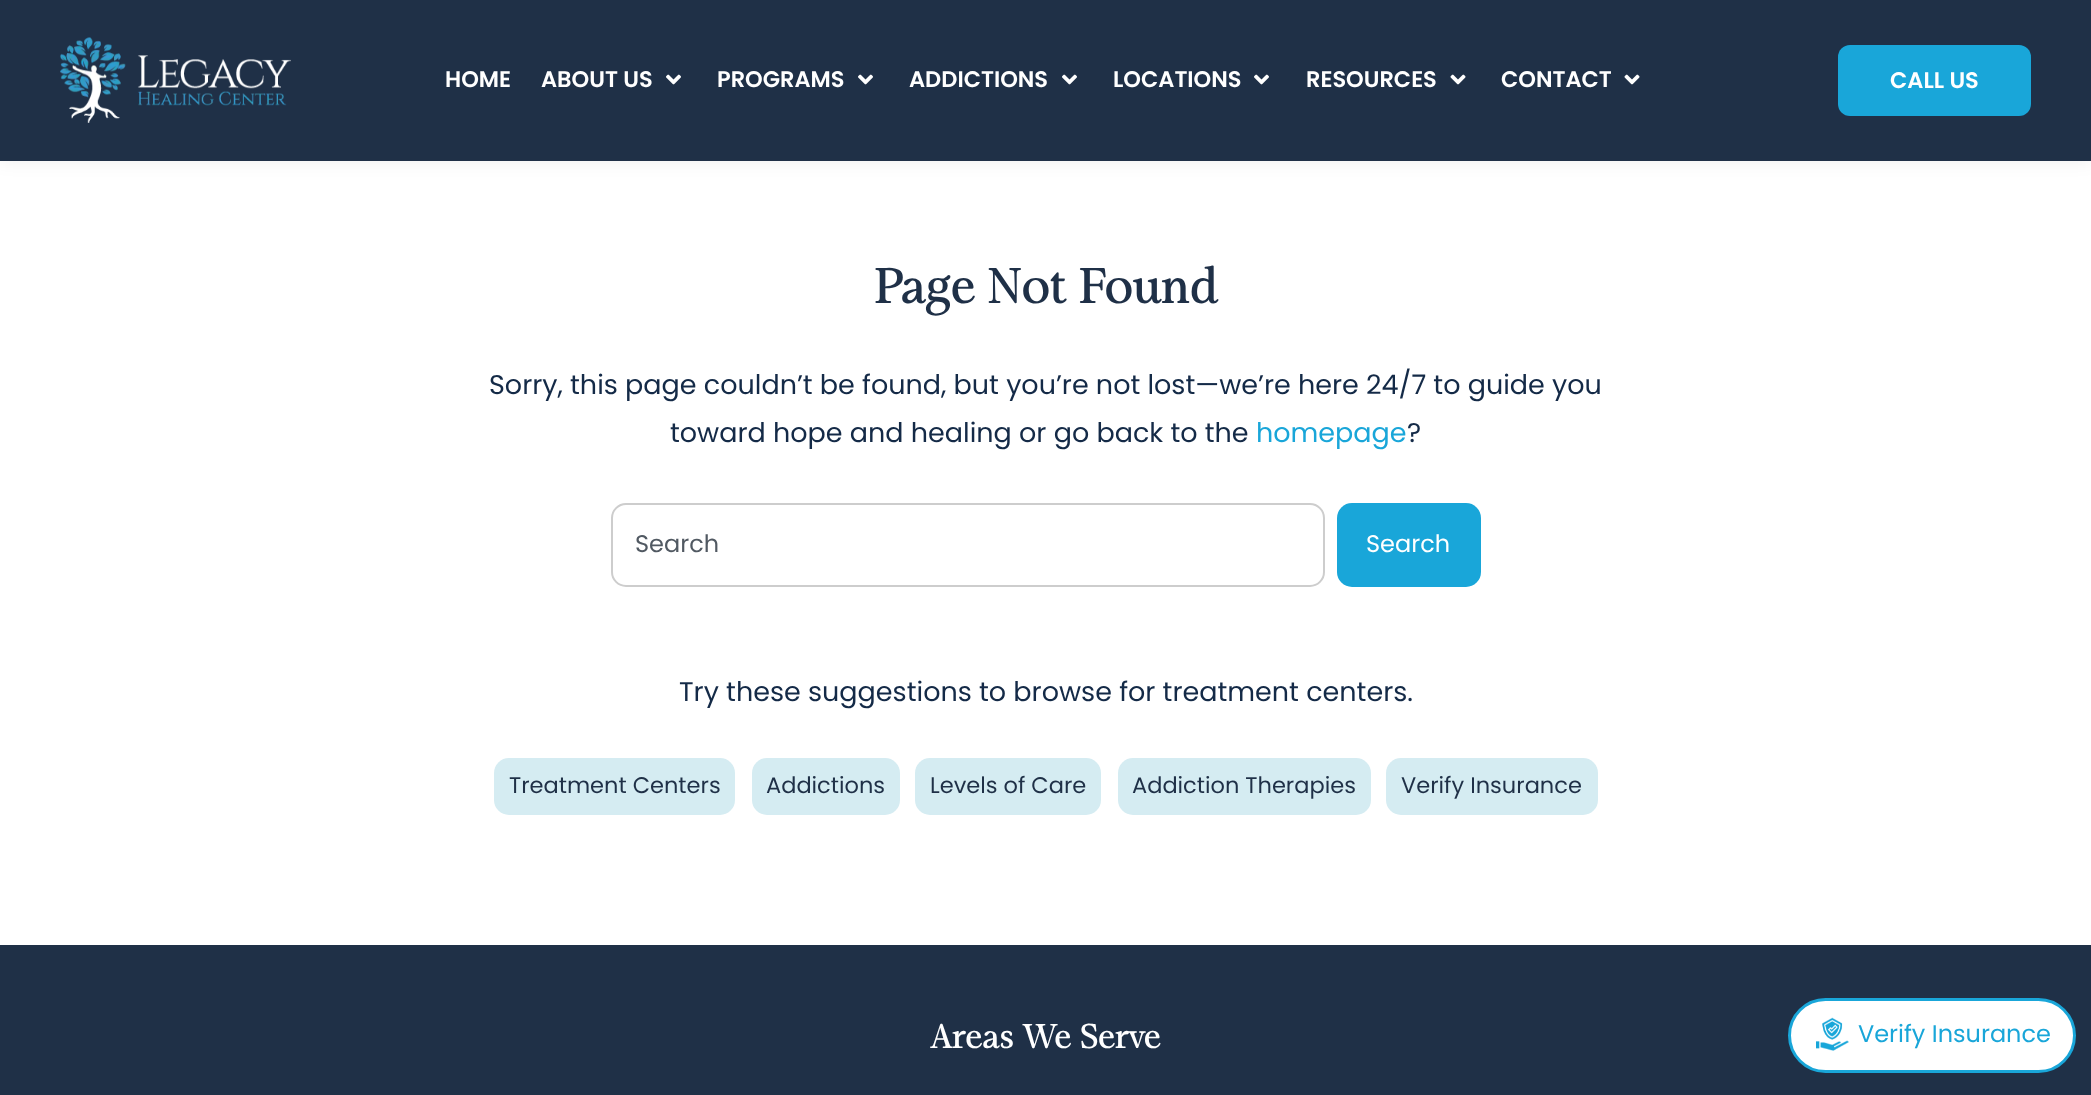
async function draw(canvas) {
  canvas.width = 2091;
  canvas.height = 1095;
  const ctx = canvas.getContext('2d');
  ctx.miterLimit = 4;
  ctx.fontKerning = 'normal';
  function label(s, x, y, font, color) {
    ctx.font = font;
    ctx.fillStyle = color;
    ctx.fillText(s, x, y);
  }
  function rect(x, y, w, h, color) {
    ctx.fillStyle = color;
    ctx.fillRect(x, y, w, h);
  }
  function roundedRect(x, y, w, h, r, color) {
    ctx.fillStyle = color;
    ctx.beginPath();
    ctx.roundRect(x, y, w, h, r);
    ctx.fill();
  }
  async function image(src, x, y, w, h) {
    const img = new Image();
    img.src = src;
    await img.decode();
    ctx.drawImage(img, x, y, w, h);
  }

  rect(0, 0, 2091, 1095, '#fff');
  ctx.fillStyle = '#0000000d';
  ctx.filter = 'blur(7.5px)';
  ctx.beginPath();
  ctx.rect(0, 3, 2091, 161);
  ctx.fill();
  ctx.filter = 'none';
  rect(0, 0, 2091, 161, '#1f3047');
  await image('assets/img1.png', 60, 37, 231, 86);
  label('HOME', 445, 87, '600 22.5px Poppins', '#fff');
  label('ABOUT US', 541, 87, '600 22.5px Poppins', '#fff');
  await image('assets/img2.png', 666, 74, 15, 11);
  label('PROGRAMS', 717, 87, '600 22.5px Poppins', '#fff');
  await image('assets/img2.png', 858, 74, 15, 11);
  label('ADDICTIONS', 909, 87, '600 22.5px Poppins', '#fff');
  await image('assets/img2.png', 1062, 74, 15, 11);
  label('LOCATIONS', 1113, 87, '600 22.5px Poppins', '#fff');
  await image('assets/img2.png', 1254, 74, 15, 11);
  label('RESOURCES', 1306, 87, '600 22.5px Poppins', '#fff');
  await image('assets/img3.png', 1450, 74, 16, 11);
  label('CONTACT', 1501, 87, '600 22.5px Poppins', '#fff');
  await image('assets/img3.png', 1624, 74, 16, 11);
  roundedRect(1838, 45, 193, 71, 12, '#19a6d9');
  label('CALL US', 1890, 88, '600 22.5px Poppins', '#fff');
  label('Page Not Found', 874, 303, 'bold 48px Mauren', '#1f3047');
  label('Sorry, this page couldn’t be found, but you’re not lost—we’re here 24/7 to guide you', 489, 394, '27px Poppins', '#142a47');
  label('toward hope and healing or go back to the', 670, 442, '27px Poppins', '#142a47');
  label('homepage', 1256, 442, '27px Poppins', '#19a6d9');
  label('?', 1407, 442, '27px Poppins', '#142a47');
  ctx.beginPath();
  ctx.roundRect(612, 504, 712, 82, 14);
  ctx.strokeStyle = '#cdcdcd';
  ctx.lineWidth = 2;
  ctx.stroke();
  label('Search', 635, 552, '24px Poppins', '#515962');
  roundedRect(1337, 503, 144, 84, 15, '#19a6d9');
  label('Search', 1366, 552, '24px Poppins', '#fff');
  label('Try these suggestions to browse for treatment centers.', 679, 701, '27px Poppins', '#142a47');
  roundedRect(494, 758, 241, 57, 15, '#d5ecf2');
  label('Treatment Centers', 509, 793, '22.5px Poppins', '#1f3047');
  roundedRect(752, 758, 148, 57, 15, '#d5ecf2');
  label('Addictions', 766, 793, '22.5px Poppins', '#1f3047');
  roundedRect(915, 758, 186, 57, 15, '#d5ecf2');
  label('Levels of Care', 930, 793, '22.5px Poppins', '#1f3047');
  roundedRect(1118, 758, 253, 57, 15, '#d5ecf2');
  label('Addiction Therapies', 1132, 793, '22.5px Poppins', '#1f3047');
  roundedRect(1386, 758, 212, 57, 15, '#d5ecf2');
  label('Verify Insurance', 1401, 793, '22.5px Poppins', '#1f3047');
  rect(0, 945, 2091, 150, '#1f3047');
  label('Areas We Serve', 930, 1048, 'bold 33px Mauren', '#fff');
  ctx.beginPath();
  ctx.roundRect(1789.5, 999.5, 285, 72, 36);
  ctx.fill();
  ctx.strokeStyle = '#19a6d9';
  ctx.lineWidth = 3;
  ctx.stroke();
  await image('assets/img4.png', 1816, 1017, 33, 34);
  label('Verify Insurance', 1858, 1042, '24px Poppins', '#19a6d9');
}

draw(document.querySelector('canvas'));
